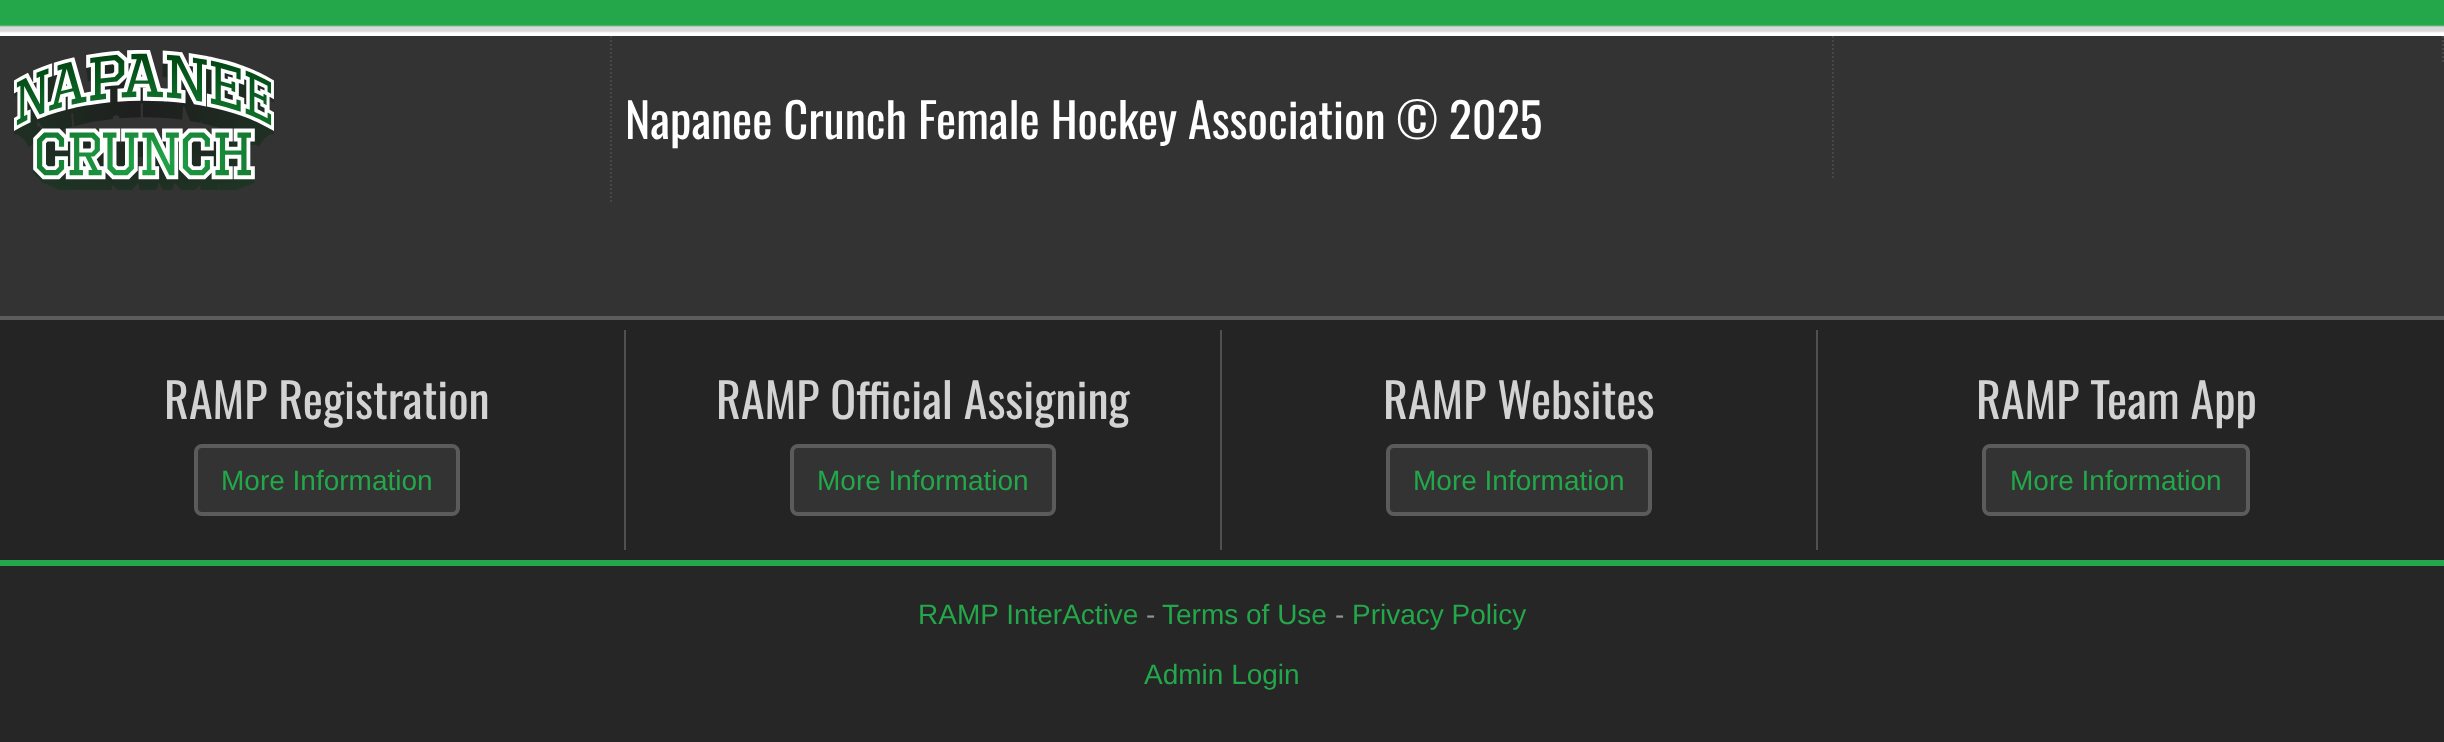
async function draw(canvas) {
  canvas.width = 2444;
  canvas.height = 742;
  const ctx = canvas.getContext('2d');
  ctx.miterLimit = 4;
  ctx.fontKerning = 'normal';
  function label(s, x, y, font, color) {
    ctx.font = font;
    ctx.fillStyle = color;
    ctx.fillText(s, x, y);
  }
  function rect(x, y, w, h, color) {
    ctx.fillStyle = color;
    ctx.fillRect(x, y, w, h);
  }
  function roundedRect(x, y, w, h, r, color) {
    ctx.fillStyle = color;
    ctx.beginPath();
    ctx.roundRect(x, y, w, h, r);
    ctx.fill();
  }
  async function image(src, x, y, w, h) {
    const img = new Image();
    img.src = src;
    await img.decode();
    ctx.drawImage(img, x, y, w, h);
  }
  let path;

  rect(0, 0, 2444, 742, '#333');
  rect(0, 0, 2444, 27, '#23a74a');
  await image('assets/img1.png', 0, 25, 2444, 11);
  path = new Path2D('M611 36V204');
  ctx.strokeStyle = '#474747';
  ctx.lineWidth = 2;
  ctx.setLineDash([2, 2]);
  ctx.stroke(path);
  await image('assets/img2.png', 14, 50, 260, 140);
  path = new Path2D('M2443 36V64');
  ctx.stroke(path);
  path = new Path2D('M1833 36V178');
  ctx.stroke(path);
  label('Napanee Crunch Female Hockey Association © 2025', 625, 139, '48px Oswald', '#fff');
  rect(0, 316, 2444, 4, '#5c5c5c');
  rect(0, 320, 2444, 240, '#242424');
  rect(624, 330, 2, 220, '#505050');
  label('RAMP Registration', 164, 419, '48px Oswald', '#d3d3d3');
  roundedRect(194, 444, 266, 72, 8, '#333');
  ctx.beginPath();
  ctx.roundRect(196, 446, 262, 68, 6);
  ctx.strokeStyle = '#ffffff33';
  ctx.lineWidth = 4;
  ctx.setLineDash([]);
  ctx.stroke();
  label('More Information', 221, 490, '28px Liberation Sans', '#23a74a');
  rect(1220, 330, 2, 220, '#505050');
  label('RAMP Official Assigning', 716, 419, '48px Oswald', '#d3d3d3');
  roundedRect(790, 444, 266, 72, 8, '#333');
  ctx.beginPath();
  ctx.roundRect(792, 446, 262, 68, 6);
  ctx.stroke();
  label('More Information', 817, 490, '28px Liberation Sans', '#23a74a');
  rect(1816, 330, 2, 220, '#505050');
  label('RAMP Websites', 1383, 419, '48px Oswald', '#d3d3d3');
  roundedRect(1386, 444, 266, 72, 8, '#333');
  ctx.beginPath();
  ctx.roundRect(1388, 446, 262, 68, 6);
  ctx.stroke();
  label('More Information', 1413, 490, '28px Liberation Sans', '#23a74a');
  label('RAMP Team App', 1976, 419, '48px Oswald', '#d3d3d3');
  roundedRect(1982, 444, 268, 72, 8, '#333');
  ctx.beginPath();
  ctx.roundRect(1984, 446, 264, 68, 6);
  ctx.stroke();
  label('More Information', 2010, 490, '28px Liberation Sans', '#23a74a');
  rect(0, 560, 2444, 6, '#23a74a');
  rect(0, 566, 2444, 176, '#262626');
  label('RAMP InterActive', 918, 624, '28px Liberation Sans', '#23a74a');
  label('-', 1146, 624, '28px Liberation Sans', '#939393');
  label('Terms of Use', 1162, 624, '28px Liberation Sans', '#23a74a');
  label('-', 1335, 624, '28px Liberation Sans', '#939393');
  label('Privacy Policy', 1352, 624, '28px Liberation Sans', '#23a74a');
  label('Admin Login', 1144, 684, '28px Liberation Sans', '#23a74a');
}

draw(document.querySelector('canvas'));
